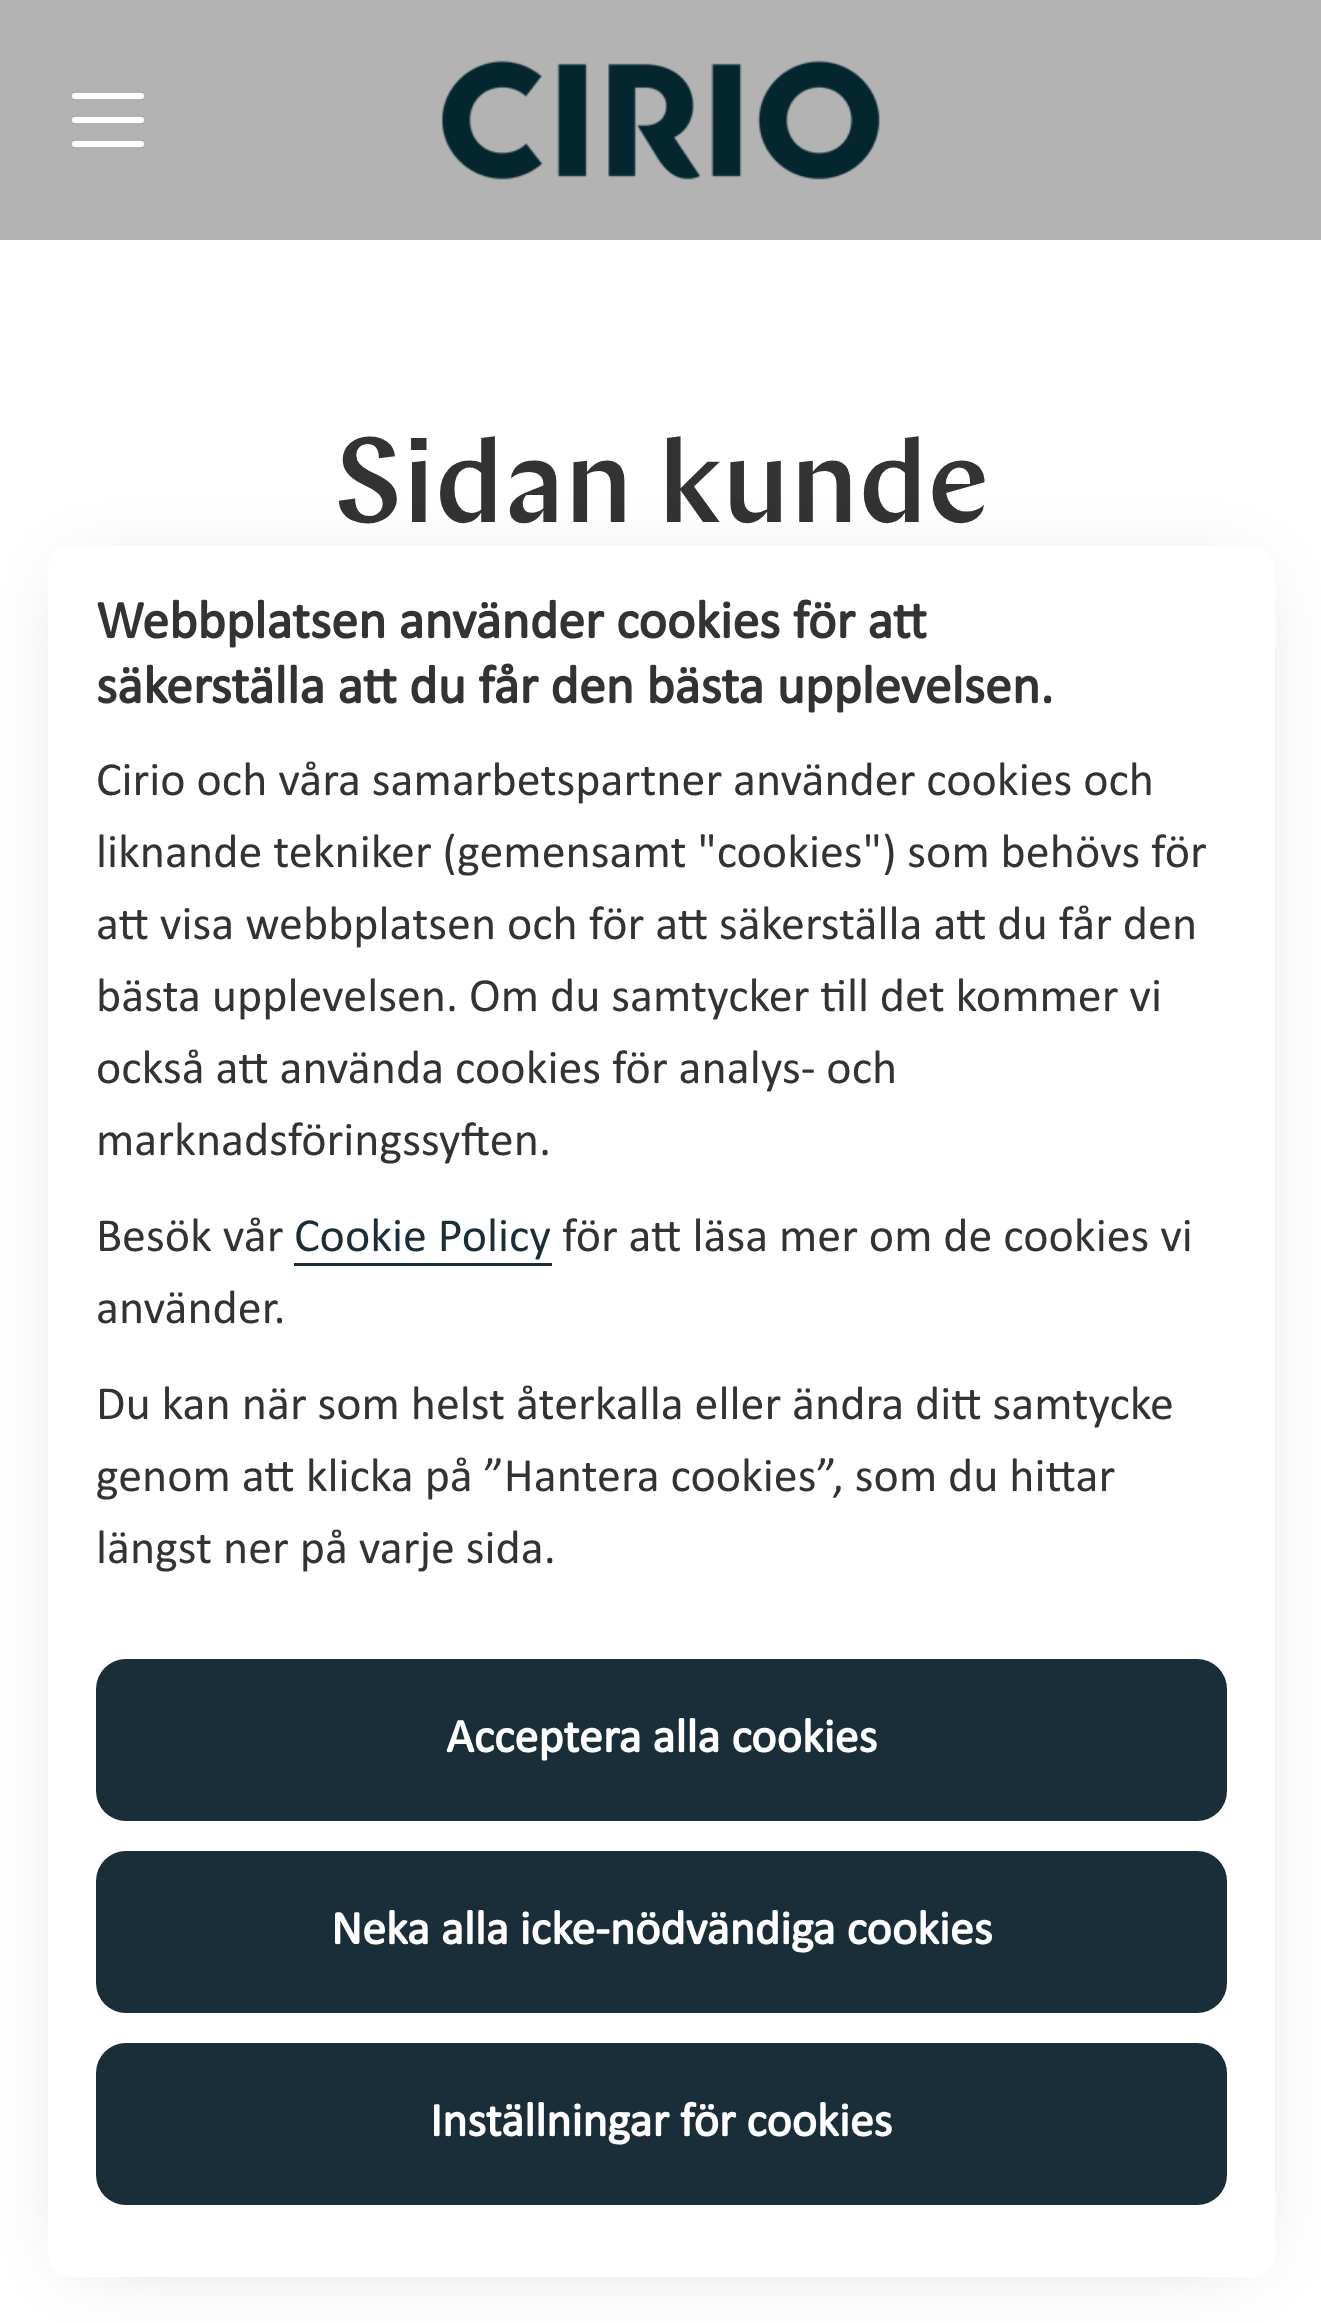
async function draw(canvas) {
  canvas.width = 1321;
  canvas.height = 2323;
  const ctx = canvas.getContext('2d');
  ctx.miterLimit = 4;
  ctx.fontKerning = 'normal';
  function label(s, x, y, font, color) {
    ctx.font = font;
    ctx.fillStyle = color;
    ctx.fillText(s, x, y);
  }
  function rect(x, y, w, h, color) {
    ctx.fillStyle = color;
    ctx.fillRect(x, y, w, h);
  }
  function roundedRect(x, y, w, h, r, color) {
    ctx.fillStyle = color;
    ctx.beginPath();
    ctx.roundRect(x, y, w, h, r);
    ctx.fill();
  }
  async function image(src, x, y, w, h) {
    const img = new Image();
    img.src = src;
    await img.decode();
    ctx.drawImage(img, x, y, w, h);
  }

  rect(0, 0, 1321, 2323, '#fff');
  rect(0, 0, 1321, 240, '#b3b3b3');
  roundedRect(72, 93, 72, 6, 3, '#fff');
  roundedRect(72, 117, 72, 6, 3, '#fff');
  roundedRect(72, 141, 72, 6, 3, '#fff');
  await image('assets/img1.png', 441, 60, 440, 120);
  label('Sidan kunde', 333, 522, '500 120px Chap', '#333');
  ctx.fillStyle = '#0000002e';
  ctx.filter = 'blur(40.5px)';
  ctx.beginPath();
  ctx.rect(78, 582, 1167, 1671);
  ctx.fill();
  ctx.filter = 'none';
  roundedRect(48, 546, 1227, 1731, 24, '#fff');
  label('Webbplatsen använder cookies för att', 96, 638, 'bold 54px Calibri', '#333');
  label('säkerställa att du får den bästa upplevelsen.', 96, 703, 'bold 54px Calibri', '#333');
  label('Cirio och våra samarbetspartner använder cookies och', 96, 795, '48px Calibri', '#333');
  label('liknande tekniker (gemensamt "cookies") som behövs för', 96, 867, '48px Calibri', '#333');
  label('att visa webbplatsen och för att säkerställa att du får den', 96, 939, '48px Calibri', '#333');
  label('bästa upplevelsen. Om du samtycker till det kommer vi', 96, 1011, '48px Calibri', '#333');
  label('också att använda cookies för analys- och', 96, 1083, '48px Calibri', '#333');
  label('marknadsföringssyften.', 96, 1155, '48px Calibri', '#333');
  label('Besök vår', 96, 1251, '48px Calibri', '#333');
  label('Cookie Policy', 294, 1251, '48px Calibri', '#1a2e39');
  rect(294, 1263, 258, 3, '#1a2e39');
  label('för att läsa mer om de cookies vi', 562, 1251, '48px Calibri', '#333');
  label('använder.', 96, 1323, '48px Calibri', '#333');
  label('Du kan när som helst återkalla eller ändra ditt samtycke', 96, 1419, '48px Calibri', '#333');
  label('genom att klicka på ”Hantera cookies”, som du hittar', 96, 1491, '48px Calibri', '#333');
  label('längst ner på varje sida.', 96, 1563, '48px Calibri', '#333');
  roundedRect(96, 1659, 1131, 162, 30, '#1a2e39');
  label('Acceptera alla cookies', 446, 1752, 'bold 48px Calibri', '#fff');
  roundedRect(96, 1851, 1131, 162, 30, '#1a2e39');
  label('Neka alla icke-nödvändiga cookies', 331, 1944, 'bold 48px Calibri', '#fff');
  roundedRect(96, 2043, 1131, 162, 30, '#1a2e39');
  label('Inställningar för cookies', 430, 2136, 'bold 48px Calibri', '#fff');
}

draw(document.querySelector('canvas'));
